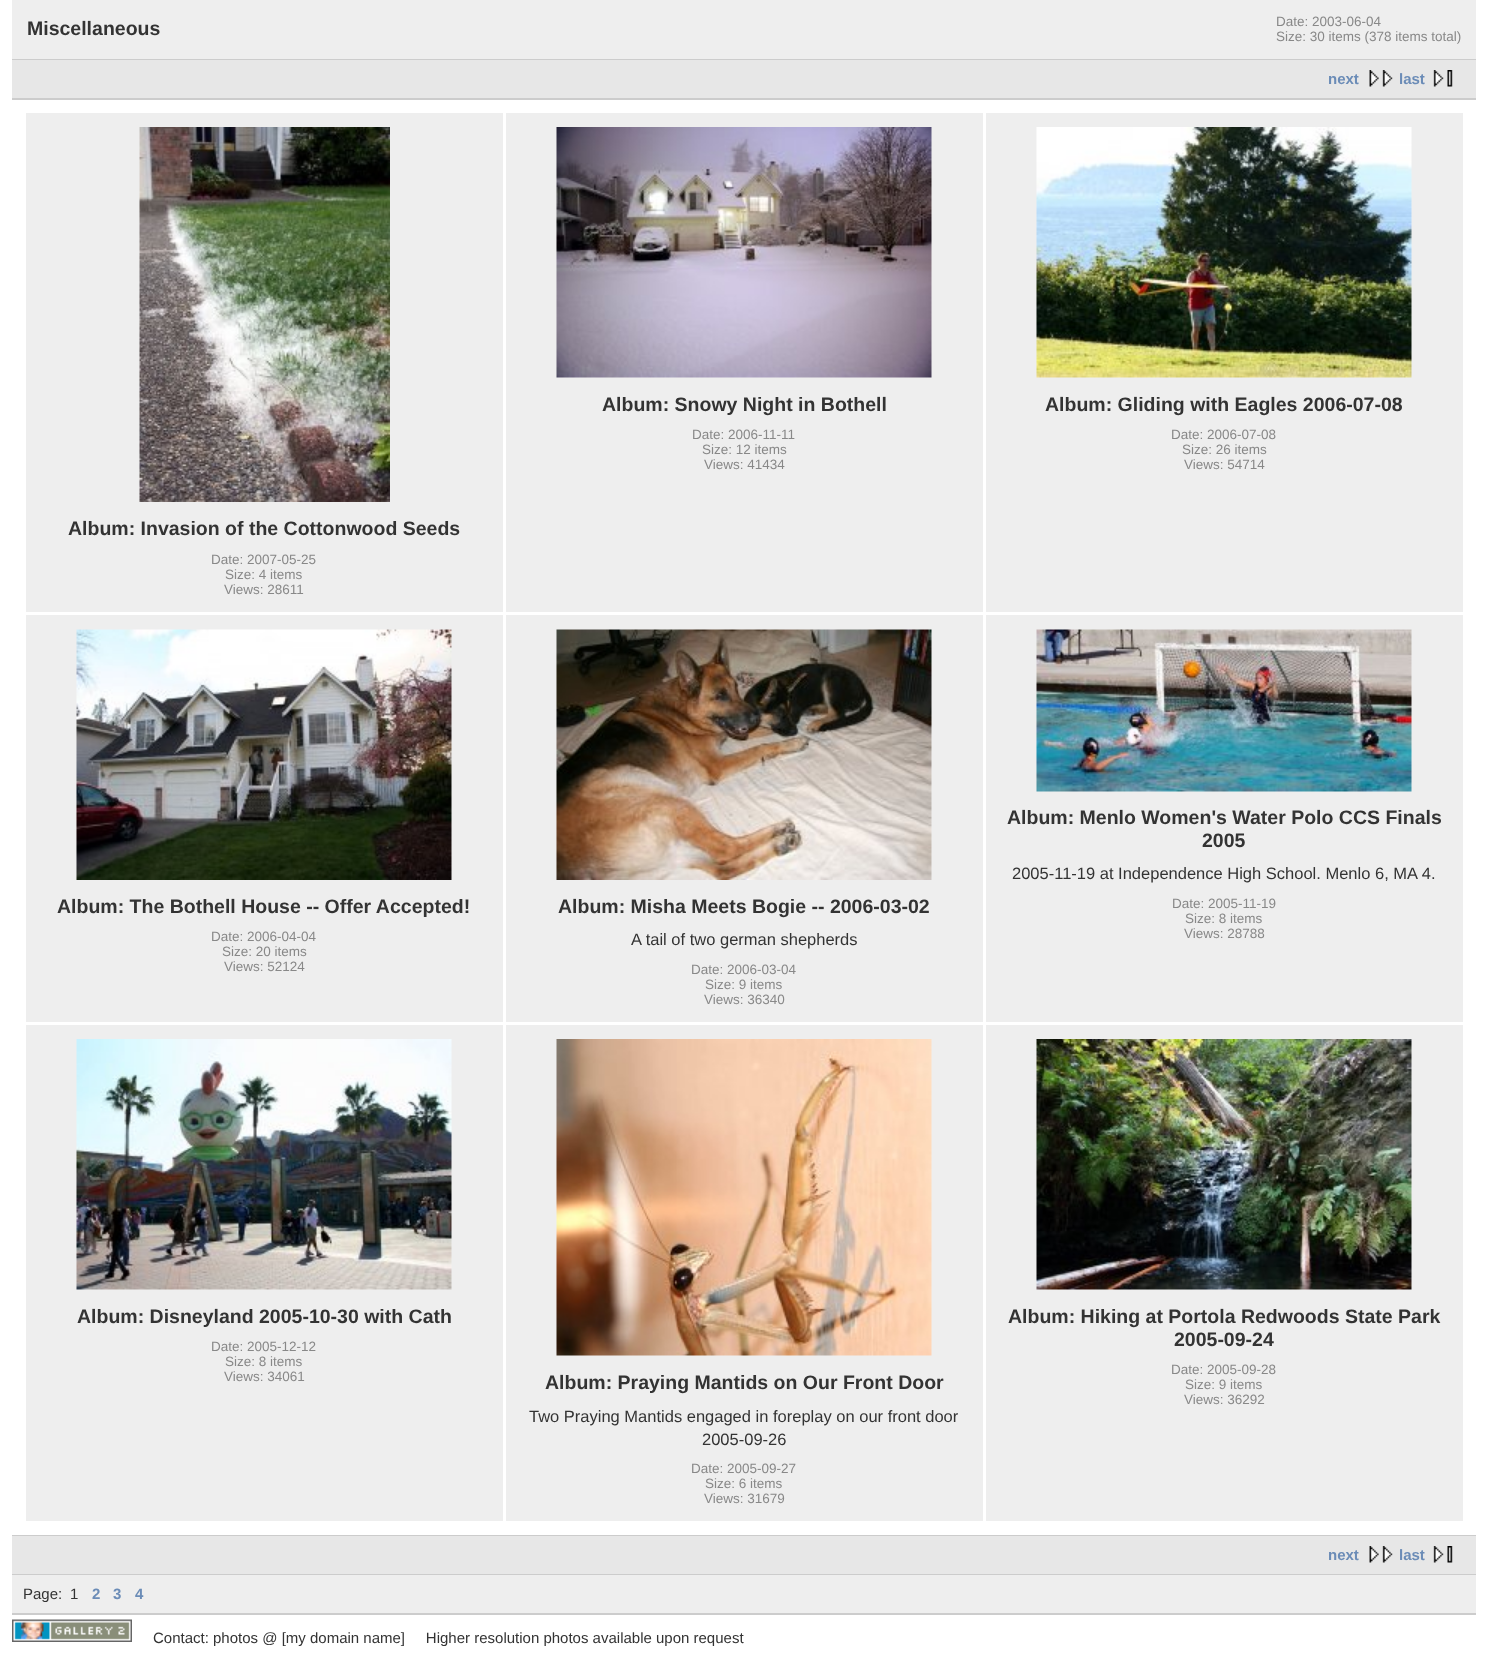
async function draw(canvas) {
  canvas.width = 1487;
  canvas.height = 1656;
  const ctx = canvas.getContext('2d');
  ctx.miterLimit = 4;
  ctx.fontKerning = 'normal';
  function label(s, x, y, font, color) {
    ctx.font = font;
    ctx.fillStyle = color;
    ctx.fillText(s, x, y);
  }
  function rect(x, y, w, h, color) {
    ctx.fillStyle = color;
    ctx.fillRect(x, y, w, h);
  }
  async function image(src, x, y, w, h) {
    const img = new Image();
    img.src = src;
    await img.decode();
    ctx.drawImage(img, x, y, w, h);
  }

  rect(0, 0, 1487, 1656, '#fff');
  rect(12, 0, 1464, 59, '#eee');
  rect(12, 59, 1464, 1, '#ccc');
  label('Miscellaneous', 27, 35, 'bold 19.5px Liberation Sans', '#333');
  label('Date: 2003-06-04', 1276, 26, '13.5px Liberation Sans', '#888');
  label('Size: 30 items (378 items total)', 1276, 41, '13.5px Liberation Sans', '#888');
  rect(12, 60, 1464, 38, '#e7e7e7');
  rect(12, 98, 1464, 2, '#ccc');
  label('next', 1328, 84, 'bold 15px Liberation Sans', '#6b8cb7');
  await image('assets/img1.png', 1369, 70, 24, 17);
  label('last', 1399, 84, 'bold 15px Liberation Sans', '#6b8cb7');
  await image('assets/img2.png', 1433, 70, 20, 17);
  rect(12, 1535, 1464, 1, '#ccc');
  rect(506, 113, 477, 499, '#eee');
  await image('assets/img3.png', 556, 127, 376, 251);
  label('Album: Snowy Night in Bothell', 602, 411, 'bold 19.5px Liberation Sans', '#333');
  label('Date: 2006-11-11', 692, 439, '13.5px Liberation Sans', '#888');
  label('Size: 12 items', 702, 454, '13.5px Liberation Sans', '#888');
  label('Views: 41434', 704, 469, '13.5px Liberation Sans', '#888');
  rect(986, 113, 477, 499, '#eee');
  await image('assets/img4.png', 1036, 127, 376, 251);
  label('Album: Gliding with Eagles 2006-07-08', 1045, 411, 'bold 19.5px Liberation Sans', '#333');
  label('Date: 2006-07-08', 1171, 439, '13.5px Liberation Sans', '#888');
  label('Size: 26 items', 1182, 454, '13.5px Liberation Sans', '#888');
  label('Views: 54714', 1184, 469, '13.5px Liberation Sans', '#888');
  rect(26, 113, 477, 499, '#eee');
  await image('assets/img5.png', 139, 127, 251, 375);
  label('Album: Invasion of the Cottonwood Seeds', 68, 535, 'bold 19.5px Liberation Sans', '#333');
  label('Date: 2007-05-25', 211, 564, '13.5px Liberation Sans', '#888');
  label('Size: 4 items', 225, 579, '13.5px Liberation Sans', '#888');
  label('Views: 28611', 224, 594, '13.5px Liberation Sans', '#888');
  rect(26, 615, 477, 407, '#eee');
  await image('assets/img6.png', 76, 629, 376, 251);
  label('Album: The Bothell House -- Offer Accepted!', 57, 913, 'bold 19.5px Liberation Sans', '#333');
  label('Date: 2006-04-04', 211, 941, '13.5px Liberation Sans', '#888');
  label('Size: 20 items', 222, 956, '13.5px Liberation Sans', '#888');
  label('Views: 52124', 224, 971, '13.5px Liberation Sans', '#888');
  rect(506, 615, 477, 407, '#eee');
  await image('assets/img7.png', 556, 629, 376, 251);
  label('Album: Misha Meets Bogie -- 2006-03-02', 558, 913, 'bold 19.5px Liberation Sans', '#333');
  label('A tail of two german shepherds', 631, 945, '16.5px Liberation Sans', '#333');
  label('Date: 2006-03-04', 691, 974, '13.5px Liberation Sans', '#888');
  label('Size: 9 items', 705, 989, '13.5px Liberation Sans', '#888');
  label('Views: 36340', 704, 1004, '13.5px Liberation Sans', '#888');
  rect(986, 615, 477, 407, '#eee');
  await image('assets/img8.png', 1036, 629, 376, 163);
  label('Album: Menlo Women\'s Water Polo CCS Finals', 1007, 824, 'bold 19.5px Liberation Sans', '#333');
  label('2005', 1202, 847, 'bold 19.5px Liberation Sans', '#333');
  label('2005-11-19 at Independence High School. Menlo 6, MA 4.', 1012, 879, '16.5px Liberation Sans', '#333');
  label('Date: 2005-11-19', 1172, 908, '13.5px Liberation Sans', '#888');
  label('Size: 8 items', 1185, 923, '13.5px Liberation Sans', '#888');
  label('Views: 28788', 1184, 938, '13.5px Liberation Sans', '#888');
  rect(26, 1025, 477, 496, '#eee');
  await image('assets/img9.png', 76, 1039, 376, 251);
  label('Album: Disneyland 2005-10-30 with Cath', 77, 1323, 'bold 19.5px Liberation Sans', '#333');
  label('Date: 2005-12-12', 211, 1351, '13.5px Liberation Sans', '#888');
  label('Size: 8 items', 225, 1366, '13.5px Liberation Sans', '#888');
  label('Views: 34061', 224, 1381, '13.5px Liberation Sans', '#888');
  rect(986, 1025, 477, 496, '#eee');
  await image('assets/img10.png', 1036, 1039, 376, 251);
  label('Album: Hiking at Portola Redwoods State Park', 1008, 1323, 'bold 19.5px Liberation Sans', '#333');
  label('2005-09-24', 1174, 1346, 'bold 19.5px Liberation Sans', '#333');
  label('Date: 2005-09-28', 1171, 1374, '13.5px Liberation Sans', '#888');
  label('Size: 9 items', 1185, 1389, '13.5px Liberation Sans', '#888');
  label('Views: 36292', 1184, 1404, '13.5px Liberation Sans', '#888');
  rect(506, 1025, 477, 496, '#eee');
  await image('assets/img11.png', 556, 1039, 376, 317);
  label('Album: Praying Mantids on Our Front Door', 545, 1389, 'bold 19.5px Liberation Sans', '#333');
  label('Two Praying Mantids engaged in foreplay on our front door', 529, 1422, '16.5px Liberation Sans', '#333');
  label('2005-09-26', 702, 1445, '16.5px Liberation Sans', '#333');
  label('Date: 2005-09-27', 691, 1473, '13.5px Liberation Sans', '#888');
  label('Size: 6 items', 705, 1488, '13.5px Liberation Sans', '#888');
  label('Views: 31679', 704, 1503, '13.5px Liberation Sans', '#888');
  rect(12, 1536, 1464, 38, '#e7e7e7');
  rect(12, 1574, 1464, 1, '#ccc');
  label('next', 1328, 1560, 'bold 15px Liberation Sans', '#6b8cb7');
  await image('assets/img1.png', 1369, 1546, 24, 17);
  label('last', 1399, 1560, 'bold 15px Liberation Sans', '#6b8cb7');
  await image('assets/img2.png', 1433, 1546, 20, 17);
  rect(12, 1575, 1464, 38, '#eee');
  rect(12, 1613, 1464, 2, '#ccc');
  label('Page:', 23, 1599, '15px Liberation Sans', '#333');
  label('1', 70, 1599, '15px Liberation Sans', '#333');
  label('2', 92, 1599, 'bold 15px Liberation Sans', '#6b8cb7');
  label('3', 113, 1599, 'bold 15px Liberation Sans', '#6b8cb7');
  label('4', 135, 1599, 'bold 15px Liberation Sans', '#6b8cb7');
  await image('assets/img12.png', 12, 1619, 120, 23);
  label('Contact: photos @ [my domain name]     Higher resolution photos available upon request', 153, 1643, '15px Liberation Sans', '#333');
}

draw(document.querySelector('canvas'));
